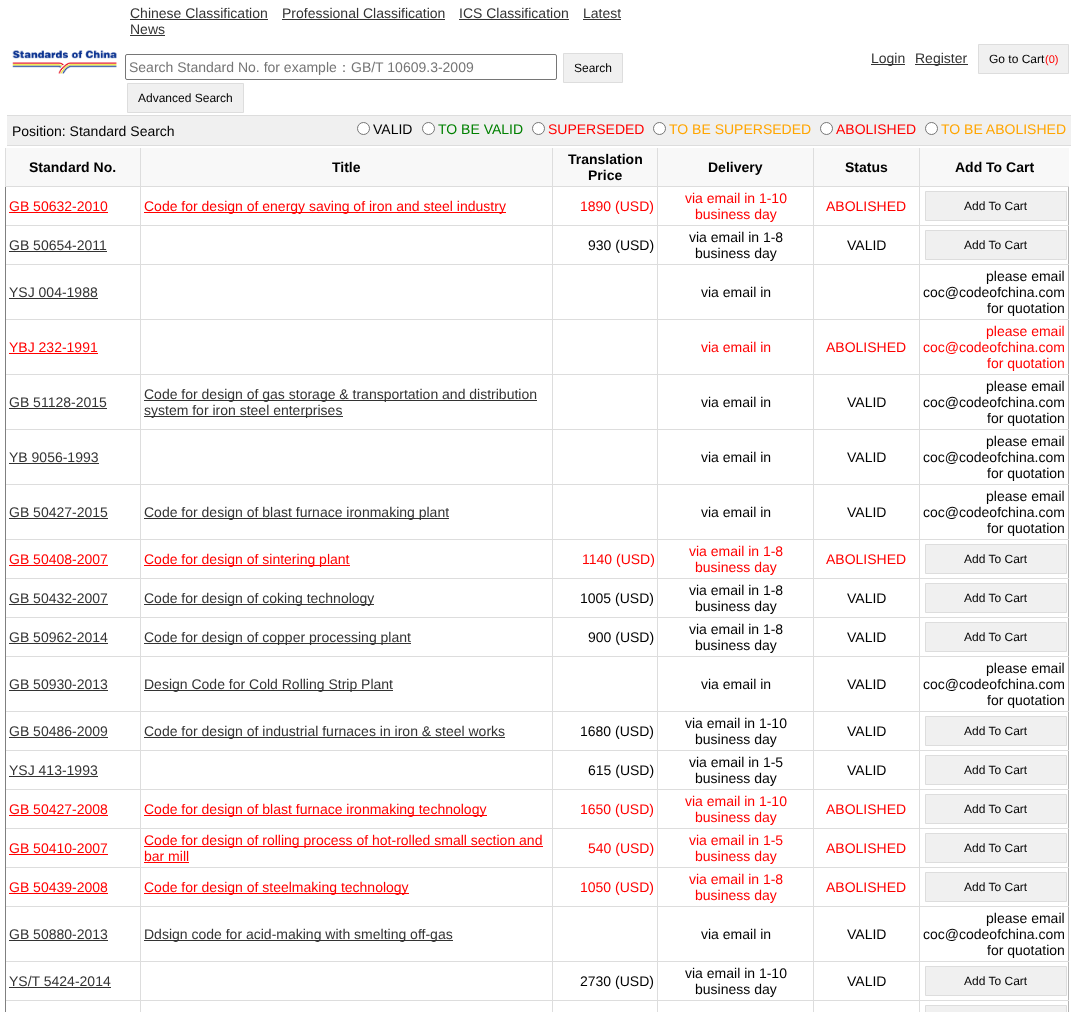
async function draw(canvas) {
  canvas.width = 1074;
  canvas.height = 1012;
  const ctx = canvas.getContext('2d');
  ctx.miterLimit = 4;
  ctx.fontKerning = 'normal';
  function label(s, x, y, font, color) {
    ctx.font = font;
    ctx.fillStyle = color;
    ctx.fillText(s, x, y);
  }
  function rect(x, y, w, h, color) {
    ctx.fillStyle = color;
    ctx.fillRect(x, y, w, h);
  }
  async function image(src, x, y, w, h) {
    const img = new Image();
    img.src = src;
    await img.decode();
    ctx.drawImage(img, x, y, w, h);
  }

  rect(0, 0, 1074, 1012, '#fff');
  await image('assets/img1.png', 12, 50, 105, 24);
  label('Chinese Classification', 130, 18, '14px Liberation Sans', '#333');
  rect(130, 19, 138, 1, '#333');
  label('Professional Classification', 282, 18, '14px Liberation Sans', '#333');
  rect(282, 19, 163, 1, '#333');
  label('ICS Classification', 459, 18, '14px Liberation Sans', '#333');
  rect(459, 19, 110, 1, '#333');
  label('Latest', 583, 18, '14px Liberation Sans', '#333');
  rect(583, 19, 38, 1, '#333');
  label('News', 130, 34, '14px Liberation Sans', '#333');
  rect(130, 35, 35, 1, '#333');
  ctx.beginPath();
  ctx.roundRect(125.5, 54.5, 431, 25, 1.5);
  ctx.strokeStyle = '#767676';
  ctx.stroke();
  label('Search Standard No. for example', 129, 72, '14px Liberation Sans', '#757575');
  label('：', 337, 72, '500 14px WenQuanYi Zen Hei', '#757575');
  label('GB/T 10609.3-2009', 351, 72, '14px Liberation Sans', '#757575');
  ctx.fillStyle = '#f0f0f0';
  ctx.beginPath();
  ctx.rect(563.5, 53.5, 59, 29);
  ctx.fill();
  ctx.strokeStyle = '#ddd';
  ctx.stroke();
  label('Search', 574, 72, '12px Liberation Sans', '#000');
  ctx.fillStyle = '#f0f0f0';
  ctx.beginPath();
  ctx.rect(127.5, 83.5, 116, 29);
  ctx.fill();
  ctx.stroke();
  label('Advanced Search', 138, 102, '12px Liberation Sans', '#000');
  rect(871, 64, 34, 1, '#333');
  label('Login', 871, 63, '14px Liberation Sans', '#333');
  rect(915, 64, 53, 1, '#333');
  label('Register', 915, 63, '14px Liberation Sans', '#333');
  ctx.fillStyle = '#f0f0f0';
  ctx.beginPath();
  ctx.rect(978.5, 44.5, 90, 29);
  ctx.fill();
  ctx.stroke();
  label('Go to Cart', 989, 63, '12px Liberation Sans', '#000');
  label('(0)', 1045, 63, '11px Liberation Sans', '#f00');
  rect(7, 116, 1064, 29, '#f0f0f0');
  rect(7, 115, 1064, 1, '#ddd');
  rect(7, 145, 1064, 1, '#ddd');
  label('Position: Standard Search', 12, 136, '14px Liberation Sans', '#000');
  ctx.fillStyle = '#fff';
  ctx.beginPath();
  ctx.arc(363.5, 128.5, 6, 0, 2 * Math.PI);
  ctx.fill();
  ctx.strokeStyle = '#767676';
  ctx.stroke();
  label('VALID', 373, 134, '14px Liberation Sans', '#000');
  ctx.fillStyle = '#fff';
  ctx.beginPath();
  ctx.arc(428.5, 128.5, 6, 0, 2 * Math.PI);
  ctx.fill();
  ctx.stroke();
  label('TO BE VALID', 438, 134, '14px Liberation Sans', '#008000');
  ctx.fillStyle = '#fff';
  ctx.beginPath();
  ctx.arc(538.5, 128.5, 6, 0, 2 * Math.PI);
  ctx.fill();
  ctx.stroke();
  label('SUPERSEDED', 548, 134, '14px Liberation Sans', '#f00');
  ctx.fillStyle = '#fff';
  ctx.beginPath();
  ctx.arc(659.5, 128.5, 6, 0, 2 * Math.PI);
  ctx.fill();
  ctx.stroke();
  label('TO BE SUPERSEDED', 669, 134, '14px Liberation Sans', '#ffa500');
  ctx.fillStyle = '#fff';
  ctx.beginPath();
  ctx.arc(826.5, 128.5, 6, 0, 2 * Math.PI);
  ctx.fill();
  ctx.stroke();
  label('ABOLISHED', 836, 134, '14px Liberation Sans', '#f00');
  ctx.fillStyle = '#fff';
  ctx.beginPath();
  ctx.arc(931.5, 128.5, 6, 0, 2 * Math.PI);
  ctx.fill();
  ctx.stroke();
  label('TO BE ABOLISHED', 941, 134, '14px Liberation Sans', '#ffa500');
  rect(6, 148, 134, 38, '#f8f8f8');
  rect(1068, 225, 1, 787, '#b4b4b4');
  rect(1068, 186, 1, 40, '#b4b4b4');
  rect(919, 1000, 1, 12, '#ddd');
  rect(919, 1000, 150, 1, '#ddd');
  rect(919, 961, 1, 40, '#ddd');
  rect(919, 961, 150, 1, '#ddd');
  rect(919, 906, 1, 56, '#ddd');
  rect(919, 906, 150, 1, '#ddd');
  rect(919, 867, 1, 40, '#ddd');
  rect(919, 867, 150, 1, '#ddd');
  rect(919, 828, 1, 40, '#ddd');
  rect(919, 828, 150, 1, '#ddd');
  rect(919, 789, 1, 40, '#ddd');
  rect(919, 789, 150, 1, '#ddd');
  rect(919, 750, 1, 40, '#ddd');
  rect(919, 750, 150, 1, '#ddd');
  rect(919, 711, 1, 40, '#ddd');
  rect(919, 711, 150, 1, '#ddd');
  rect(919, 656, 1, 56, '#ddd');
  rect(919, 656, 150, 1, '#ddd');
  rect(919, 617, 1, 40, '#ddd');
  rect(919, 617, 150, 1, '#ddd');
  rect(919, 578, 1, 40, '#ddd');
  rect(919, 578, 150, 1, '#ddd');
  rect(919, 539, 1, 40, '#ddd');
  rect(919, 539, 150, 1, '#ddd');
  rect(919, 484, 1, 56, '#ddd');
  rect(919, 484, 150, 1, '#ddd');
  rect(919, 429, 1, 56, '#ddd');
  rect(919, 429, 150, 1, '#ddd');
  rect(919, 374, 1, 56, '#ddd');
  rect(919, 374, 150, 1, '#ddd');
  rect(919, 319, 1, 56, '#ddd');
  rect(919, 319, 150, 1, '#ddd');
  rect(919, 264, 1, 56, '#ddd');
  rect(919, 264, 150, 1, '#ddd');
  rect(919, 225, 1, 40, '#ddd');
  rect(919, 225, 150, 1, '#ddd');
  rect(919, 186, 1, 40, '#ddd');
  rect(919, 186, 150, 1, '#ddd');
  rect(919, 148, 1, 39, '#ddd');
  rect(813, 1000, 1, 12, '#ddd');
  rect(813, 1000, 107, 1, '#ddd');
  rect(813, 961, 1, 40, '#ddd');
  rect(813, 961, 107, 1, '#ddd');
  rect(813, 906, 1, 56, '#ddd');
  rect(813, 906, 107, 1, '#ddd');
  rect(813, 867, 1, 40, '#ddd');
  rect(813, 867, 107, 1, '#ddd');
  rect(813, 828, 1, 40, '#ddd');
  rect(813, 828, 107, 1, '#ddd');
  rect(813, 789, 1, 40, '#ddd');
  rect(813, 789, 107, 1, '#ddd');
  rect(813, 750, 1, 40, '#ddd');
  rect(813, 750, 107, 1, '#ddd');
  rect(813, 711, 1, 40, '#ddd');
  rect(813, 711, 107, 1, '#ddd');
  rect(813, 656, 1, 56, '#ddd');
  rect(813, 656, 107, 1, '#ddd');
  rect(813, 617, 1, 40, '#ddd');
  rect(813, 617, 107, 1, '#ddd');
  rect(813, 578, 1, 40, '#ddd');
  rect(813, 578, 107, 1, '#ddd');
  rect(813, 539, 1, 40, '#ddd');
  rect(813, 539, 107, 1, '#ddd');
  rect(813, 484, 1, 56, '#ddd');
  rect(813, 484, 107, 1, '#ddd');
  rect(813, 429, 1, 56, '#ddd');
  rect(813, 429, 107, 1, '#ddd');
  rect(813, 374, 1, 56, '#ddd');
  rect(813, 374, 107, 1, '#ddd');
  rect(813, 319, 1, 56, '#ddd');
  rect(813, 319, 107, 1, '#ddd');
  rect(813, 264, 1, 56, '#ddd');
  rect(813, 264, 107, 1, '#ddd');
  rect(813, 225, 1, 40, '#ddd');
  rect(813, 225, 107, 1, '#ddd');
  rect(813, 186, 1, 40, '#ddd');
  rect(813, 186, 107, 1, '#ddd');
  rect(813, 148, 1, 39, '#ddd');
  rect(657, 1000, 1, 12, '#ddd');
  rect(657, 1000, 157, 1, '#ddd');
  rect(657, 961, 1, 40, '#ddd');
  rect(657, 961, 157, 1, '#ddd');
  rect(657, 906, 1, 56, '#ddd');
  rect(657, 906, 157, 1, '#ddd');
  rect(657, 867, 1, 40, '#ddd');
  rect(657, 867, 157, 1, '#ddd');
  rect(657, 828, 1, 40, '#ddd');
  rect(657, 828, 157, 1, '#ddd');
  rect(657, 789, 1, 40, '#ddd');
  rect(657, 789, 157, 1, '#ddd');
  rect(657, 750, 1, 40, '#ddd');
  rect(657, 750, 157, 1, '#ddd');
  rect(657, 711, 1, 40, '#ddd');
  rect(657, 711, 157, 1, '#ddd');
  rect(657, 656, 1, 56, '#ddd');
  rect(657, 656, 157, 1, '#ddd');
  rect(657, 617, 1, 40, '#ddd');
  rect(657, 617, 157, 1, '#ddd');
  rect(657, 578, 1, 40, '#ddd');
  rect(657, 578, 157, 1, '#ddd');
  rect(657, 539, 1, 40, '#ddd');
  rect(657, 539, 157, 1, '#ddd');
  rect(657, 484, 1, 56, '#ddd');
  rect(657, 484, 157, 1, '#ddd');
  rect(657, 429, 1, 56, '#ddd');
  rect(657, 429, 157, 1, '#ddd');
  rect(657, 374, 1, 56, '#ddd');
  rect(657, 374, 157, 1, '#ddd');
  rect(657, 319, 1, 56, '#ddd');
  rect(657, 319, 157, 1, '#ddd');
  rect(657, 264, 1, 56, '#ddd');
  rect(657, 264, 157, 1, '#ddd');
  rect(657, 225, 1, 40, '#ddd');
  rect(657, 225, 157, 1, '#ddd');
  rect(657, 186, 1, 40, '#ddd');
  rect(657, 186, 157, 1, '#ddd');
  rect(657, 148, 1, 39, '#ddd');
  rect(552, 1000, 1, 12, '#ddd');
  rect(552, 1000, 106, 1, '#ddd');
  rect(552, 961, 1, 40, '#ddd');
  rect(552, 961, 106, 1, '#ddd');
  rect(552, 906, 1, 56, '#ddd');
  rect(552, 906, 106, 1, '#ddd');
  rect(552, 867, 1, 40, '#ddd');
  rect(552, 867, 106, 1, '#ddd');
  rect(552, 828, 1, 40, '#ddd');
  rect(552, 828, 106, 1, '#ddd');
  rect(552, 789, 1, 40, '#ddd');
  rect(552, 789, 106, 1, '#ddd');
  rect(552, 750, 1, 40, '#ddd');
  rect(552, 750, 106, 1, '#ddd');
  rect(552, 711, 1, 40, '#ddd');
  rect(552, 711, 106, 1, '#ddd');
  rect(552, 656, 1, 56, '#ddd');
  rect(552, 656, 106, 1, '#ddd');
  rect(552, 617, 1, 40, '#ddd');
  rect(552, 617, 106, 1, '#ddd');
  rect(552, 578, 1, 40, '#ddd');
  rect(552, 578, 106, 1, '#ddd');
  rect(552, 539, 1, 40, '#ddd');
  rect(552, 539, 106, 1, '#ddd');
  rect(552, 484, 1, 56, '#ddd');
  rect(552, 484, 106, 1, '#ddd');
  rect(552, 429, 1, 56, '#ddd');
  rect(552, 429, 106, 1, '#ddd');
  rect(552, 374, 1, 56, '#ddd');
  rect(552, 374, 106, 1, '#ddd');
  rect(552, 319, 1, 56, '#ddd');
  rect(552, 319, 106, 1, '#ddd');
  rect(552, 264, 1, 56, '#ddd');
  rect(552, 264, 106, 1, '#ddd');
  rect(552, 225, 1, 40, '#ddd');
  rect(552, 225, 106, 1, '#ddd');
  rect(552, 186, 1, 40, '#ddd');
  rect(552, 186, 106, 1, '#ddd');
  rect(552, 148, 1, 39, '#ddd');
  rect(140, 1000, 1, 12, '#ddd');
  rect(140, 1000, 413, 1, '#ddd');
  rect(140, 961, 1, 40, '#ddd');
  rect(140, 961, 413, 1, '#ddd');
  rect(140, 906, 1, 56, '#ddd');
  rect(140, 906, 413, 1, '#ddd');
  rect(140, 867, 1, 40, '#ddd');
  rect(140, 867, 413, 1, '#ddd');
  rect(140, 828, 1, 40, '#ddd');
  rect(140, 828, 413, 1, '#ddd');
  rect(140, 789, 1, 40, '#ddd');
  rect(140, 789, 413, 1, '#ddd');
  rect(140, 750, 1, 40, '#ddd');
  rect(140, 750, 413, 1, '#ddd');
  rect(140, 711, 1, 40, '#ddd');
  rect(140, 711, 413, 1, '#ddd');
  rect(140, 656, 1, 56, '#ddd');
  rect(140, 656, 413, 1, '#ddd');
  rect(140, 617, 1, 40, '#ddd');
  rect(140, 617, 413, 1, '#ddd');
  rect(140, 578, 1, 40, '#ddd');
  rect(140, 578, 413, 1, '#ddd');
  rect(140, 539, 1, 40, '#ddd');
  rect(140, 539, 413, 1, '#ddd');
  rect(140, 484, 1, 56, '#ddd');
  rect(140, 484, 413, 1, '#ddd');
  rect(140, 429, 1, 56, '#ddd');
  rect(140, 429, 413, 1, '#ddd');
  rect(140, 374, 1, 56, '#ddd');
  rect(140, 374, 413, 1, '#ddd');
  rect(140, 319, 1, 56, '#ddd');
  rect(140, 319, 413, 1, '#ddd');
  rect(140, 264, 1, 56, '#ddd');
  rect(140, 264, 413, 1, '#ddd');
  rect(140, 225, 1, 40, '#ddd');
  rect(140, 225, 413, 1, '#ddd');
  rect(140, 186, 1, 40, '#ddd');
  rect(140, 186, 413, 1, '#ddd');
  rect(140, 148, 1, 39, '#ddd');
  rect(5, 1000, 1, 12, '#808080');
  rect(5, 1000, 136, 1, '#ddd');
  rect(5, 961, 1, 40, '#808080');
  rect(5, 961, 136, 1, '#ddd');
  rect(5, 906, 1, 56, '#808080');
  rect(5, 906, 136, 1, '#ddd');
  rect(5, 867, 1, 40, '#808080');
  rect(5, 867, 136, 1, '#ddd');
  rect(5, 828, 1, 40, '#808080');
  rect(5, 828, 136, 1, '#ddd');
  rect(5, 789, 1, 40, '#808080');
  rect(5, 789, 136, 1, '#ddd');
  rect(5, 750, 1, 40, '#808080');
  rect(5, 750, 136, 1, '#ddd');
  rect(5, 711, 1, 40, '#808080');
  rect(5, 711, 136, 1, '#ddd');
  rect(5, 656, 1, 56, '#808080');
  rect(5, 656, 136, 1, '#ddd');
  rect(5, 617, 1, 40, '#808080');
  rect(5, 617, 136, 1, '#ddd');
  rect(5, 578, 1, 40, '#808080');
  rect(5, 578, 136, 1, '#ddd');
  rect(5, 539, 1, 40, '#808080');
  rect(5, 539, 136, 1, '#ddd');
  rect(5, 484, 1, 56, '#808080');
  rect(5, 484, 136, 1, '#ddd');
  rect(5, 429, 1, 56, '#808080');
  rect(5, 429, 136, 1, '#ddd');
  rect(5, 374, 1, 56, '#808080');
  rect(5, 374, 136, 1, '#ddd');
  rect(5, 319, 1, 56, '#808080');
  rect(5, 319, 136, 1, '#ddd');
  rect(5, 264, 1, 56, '#808080');
  rect(5, 264, 136, 1, '#ddd');
  rect(5, 225, 1, 40, '#808080');
  rect(5, 225, 136, 1, '#ddd');
  rect(5, 186, 1, 40, '#808080');
  rect(5, 186, 136, 1, '#ddd');
  rect(5, 148, 1, 39, '#ddd');
  label('Standard No.', 29, 172, 'bold 14px Liberation Sans', '#000');
  rect(141, 148, 411, 38, '#f8f8f8');
  label('Title', 332, 172, 'bold 14px Liberation Sans', '#000');
  rect(553, 148, 104, 38, '#f8f8f8');
  label('Translation', 568, 164, 'bold 14px Liberation Sans', '#000');
  label('Price', 588, 180, 'bold 14px Liberation Sans', '#000');
  rect(658, 148, 155, 38, '#f8f8f8');
  label('Delivery', 708, 172, 'bold 14px Liberation Sans', '#000');
  rect(814, 148, 105, 38, '#f8f8f8');
  label('Status', 845, 172, 'bold 14px Liberation Sans', '#000');
  rect(920, 148, 149, 38, '#f8f8f8');
  label('Add To Cart', 955, 172, 'bold 14px Liberation Sans', '#000');
  label('GB 50632-2010', 9, 211, '14px Liberation Sans', '#f00');
  rect(9, 212, 99, 1, '#f00');
  rect(144, 212, 362, 1, '#f00');
  label('Code for design of energy saving of iron and steel industry', 144, 211, '14px Liberation Sans', '#f00');
  label('1890 (USD)', 580, 211, '14px Liberation Sans', '#f00');
  label('via email in 1-10', 685, 203, '14px Liberation Sans', '#f00');
  label('business day', 695, 219, '14px Liberation Sans', '#f00');
  label('ABOLISHED', 826, 211, '14px Liberation Sans', '#f00');
  ctx.fillStyle = '#f0f0f0';
  ctx.beginPath();
  ctx.rect(925.5, 191.5, 141, 29);
  ctx.fill();
  ctx.strokeStyle = '#ddd';
  ctx.stroke();
  label('Add To Cart', 964, 210, '12px Liberation Sans', '#000');
  ctx.fillStyle = '#f0f0f0';
  ctx.beginPath();
  ctx.rect(925.5, 1005.5, 141, 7);
  ctx.fill();
  ctx.stroke();
  label('GB 50654-2011', 9, 250, '14px Liberation Sans', '#333');
  rect(9, 251, 98, 1, '#333');
  label('930 (USD)', 588, 250, '14px Liberation Sans', '#000');
  label('via email in 1-8', 689, 242, '14px Liberation Sans', '#000');
  label('business day', 695, 258, '14px Liberation Sans', '#000');
  label('VALID', 847, 250, '14px Liberation Sans', '#000');
  ctx.fillStyle = '#f0f0f0';
  ctx.beginPath();
  ctx.rect(925.5, 230.5, 141, 29);
  ctx.fill();
  ctx.stroke();
  label('Add To Cart', 964, 249, '12px Liberation Sans', '#000');
  label('YSJ 004-1988', 9, 297, '14px Liberation Sans', '#333');
  rect(9, 298, 89, 1, '#333');
  label('via email in', 701, 297, '14px Liberation Sans', '#000');
  label('please email', 986, 281, '14px Liberation Sans', '#000');
  label('coc@codeofchina.com', 923, 297, '14px Liberation Sans', '#000');
  label('for quotation', 987, 313, '14px Liberation Sans', '#000');
  label('YBJ 232-1991', 9, 352, '14px Liberation Sans', '#f00');
  rect(9, 353, 89, 1, '#f00');
  label('via email in', 701, 352, '14px Liberation Sans', '#f00');
  label('ABOLISHED', 826, 352, '14px Liberation Sans', '#f00');
  label('please email', 986, 336, '14px Liberation Sans', '#f00');
  label('coc@codeofchina.com', 923, 352, '14px Liberation Sans', '#f00');
  label('for quotation', 987, 368, '14px Liberation Sans', '#f00');
  label('GB 51128-2015', 9, 407, '14px Liberation Sans', '#333');
  rect(9, 408, 98, 1, '#333');
  rect(144, 400, 393, 1, '#333');
  label('Code for design of gas storage & transportation and distribution', 144, 399, '14px Liberation Sans', '#333');
  rect(144, 416, 199, 1, '#333');
  label('system for iron steel enterprises', 144, 415, '14px Liberation Sans', '#333');
  label('via email in', 701, 407, '14px Liberation Sans', '#000');
  label('VALID', 847, 407, '14px Liberation Sans', '#000');
  label('please email', 986, 391, '14px Liberation Sans', '#000');
  label('coc@codeofchina.com', 923, 407, '14px Liberation Sans', '#000');
  label('for quotation', 987, 423, '14px Liberation Sans', '#000');
  label('YB 9056-1993', 9, 462, '14px Liberation Sans', '#333');
  rect(9, 463, 90, 1, '#333');
  label('via email in', 701, 462, '14px Liberation Sans', '#000');
  label('VALID', 847, 462, '14px Liberation Sans', '#000');
  label('please email', 986, 446, '14px Liberation Sans', '#000');
  label('coc@codeofchina.com', 923, 462, '14px Liberation Sans', '#000');
  label('for quotation', 987, 478, '14px Liberation Sans', '#000');
  label('GB 50427-2015', 9, 517, '14px Liberation Sans', '#333');
  rect(9, 518, 99, 1, '#333');
  rect(144, 518, 305, 1, '#333');
  label('Code for design of blast furnace ironmaking plant', 144, 517, '14px Liberation Sans', '#333');
  label('via email in', 701, 517, '14px Liberation Sans', '#000');
  label('VALID', 847, 517, '14px Liberation Sans', '#000');
  label('please email', 986, 501, '14px Liberation Sans', '#000');
  label('coc@codeofchina.com', 923, 517, '14px Liberation Sans', '#000');
  label('for quotation', 987, 533, '14px Liberation Sans', '#000');
  label('GB 50408-2007', 9, 564, '14px Liberation Sans', '#f00');
  rect(9, 565, 99, 1, '#f00');
  rect(144, 565, 206, 1, '#f00');
  label('Code for design of sintering plant', 144, 564, '14px Liberation Sans', '#f00');
  label('1140 (USD)', 582, 564, '14px Liberation Sans', '#f00');
  label('via email in 1-8', 689, 556, '14px Liberation Sans', '#f00');
  label('business day', 695, 572, '14px Liberation Sans', '#f00');
  label('ABOLISHED', 826, 564, '14px Liberation Sans', '#f00');
  ctx.fillStyle = '#f0f0f0';
  ctx.beginPath();
  ctx.rect(925.5, 544.5, 141, 29);
  ctx.fill();
  ctx.stroke();
  label('Add To Cart', 964, 563, '12px Liberation Sans', '#000');
  label('GB 50432-2007', 9, 603, '14px Liberation Sans', '#333');
  rect(9, 604, 99, 1, '#333');
  rect(144, 604, 230, 1, '#333');
  label('Code for design of coking technology', 144, 603, '14px Liberation Sans', '#333');
  label('1005 (USD)', 580, 603, '14px Liberation Sans', '#000');
  label('via email in 1-8', 689, 595, '14px Liberation Sans', '#000');
  label('business day', 695, 611, '14px Liberation Sans', '#000');
  label('VALID', 847, 603, '14px Liberation Sans', '#000');
  ctx.fillStyle = '#f0f0f0';
  ctx.beginPath();
  ctx.rect(925.5, 583.5, 141, 29);
  ctx.fill();
  ctx.stroke();
  label('Add To Cart', 964, 602, '12px Liberation Sans', '#000');
  label('GB 50962-2014', 9, 642, '14px Liberation Sans', '#333');
  rect(9, 643, 99, 1, '#333');
  rect(144, 643, 267, 1, '#333');
  label('Code for design of copper processing plant', 144, 642, '14px Liberation Sans', '#333');
  label('900 (USD)', 588, 642, '14px Liberation Sans', '#000');
  label('via email in 1-8', 689, 634, '14px Liberation Sans', '#000');
  label('business day', 695, 650, '14px Liberation Sans', '#000');
  label('VALID', 847, 642, '14px Liberation Sans', '#000');
  ctx.fillStyle = '#f0f0f0';
  ctx.beginPath();
  ctx.rect(925.5, 622.5, 141, 29);
  ctx.fill();
  ctx.stroke();
  label('Add To Cart', 964, 641, '12px Liberation Sans', '#000');
  label('GB 50930-2013', 9, 689, '14px Liberation Sans', '#333');
  rect(9, 690, 99, 1, '#333');
  rect(144, 690, 249, 1, '#333');
  label('Design Code for Cold Rolling Strip Plant', 144, 689, '14px Liberation Sans', '#333');
  label('via email in', 701, 689, '14px Liberation Sans', '#000');
  label('VALID', 847, 689, '14px Liberation Sans', '#000');
  label('please email', 986, 673, '14px Liberation Sans', '#000');
  label('coc@codeofchina.com', 923, 689, '14px Liberation Sans', '#000');
  label('for quotation', 987, 705, '14px Liberation Sans', '#000');
  label('GB 50486-2009', 9, 736, '14px Liberation Sans', '#333');
  rect(9, 737, 99, 1, '#333');
  rect(144, 737, 361, 1, '#333');
  label('Code for design of industrial furnaces in iron & steel works', 144, 736, '14px Liberation Sans', '#333');
  label('1680 (USD)', 580, 736, '14px Liberation Sans', '#000');
  label('via email in 1-10', 685, 728, '14px Liberation Sans', '#000');
  label('business day', 695, 744, '14px Liberation Sans', '#000');
  label('VALID', 847, 736, '14px Liberation Sans', '#000');
  ctx.fillStyle = '#f0f0f0';
  ctx.beginPath();
  ctx.rect(925.5, 716.5, 141, 29);
  ctx.fill();
  ctx.stroke();
  label('Add To Cart', 964, 735, '12px Liberation Sans', '#000');
  label('YSJ 413-1993', 9, 775, '14px Liberation Sans', '#333');
  rect(9, 776, 89, 1, '#333');
  label('615 (USD)', 588, 775, '14px Liberation Sans', '#000');
  label('via email in 1-5', 689, 767, '14px Liberation Sans', '#000');
  label('business day', 695, 783, '14px Liberation Sans', '#000');
  label('VALID', 847, 775, '14px Liberation Sans', '#000');
  ctx.fillStyle = '#f0f0f0';
  ctx.beginPath();
  ctx.rect(925.5, 755.5, 141, 29);
  ctx.fill();
  ctx.stroke();
  label('Add To Cart', 964, 774, '12px Liberation Sans', '#000');
  label('GB 50427-2008', 9, 814, '14px Liberation Sans', '#f00');
  rect(9, 815, 99, 1, '#f00');
  rect(144, 815, 343, 1, '#f00');
  label('Code for design of blast furnace ironmaking technology', 144, 814, '14px Liberation Sans', '#f00');
  label('1650 (USD)', 580, 814, '14px Liberation Sans', '#f00');
  label('via email in 1-10', 685, 806, '14px Liberation Sans', '#f00');
  label('business day', 695, 822, '14px Liberation Sans', '#f00');
  label('ABOLISHED', 826, 814, '14px Liberation Sans', '#f00');
  ctx.fillStyle = '#f0f0f0';
  ctx.beginPath();
  ctx.rect(925.5, 794.5, 141, 29);
  ctx.fill();
  ctx.stroke();
  label('Add To Cart', 964, 813, '12px Liberation Sans', '#000');
  label('GB 50410-2007', 9, 853, '14px Liberation Sans', '#f00');
  rect(9, 854, 99, 1, '#f00');
  rect(144, 846, 399, 1, '#f00');
  label('Code for design of rolling process of hot-rolled small section and', 144, 845, '14px Liberation Sans', '#f00');
  label('bar mill', 144, 861, '14px Liberation Sans', '#f00');
  rect(144, 862, 45, 1, '#f00');
  label('540 (USD)', 588, 853, '14px Liberation Sans', '#f00');
  label('via email in 1-5', 689, 845, '14px Liberation Sans', '#f00');
  label('business day', 695, 861, '14px Liberation Sans', '#f00');
  label('ABOLISHED', 826, 853, '14px Liberation Sans', '#f00');
  ctx.fillStyle = '#f0f0f0';
  ctx.beginPath();
  ctx.rect(925.5, 833.5, 141, 29);
  ctx.fill();
  ctx.stroke();
  label('Add To Cart', 964, 852, '12px Liberation Sans', '#000');
  label('GB 50439-2008', 9, 892, '14px Liberation Sans', '#f00');
  rect(9, 893, 99, 1, '#f00');
  rect(144, 893, 265, 1, '#f00');
  label('Code for design of steelmaking technology', 144, 892, '14px Liberation Sans', '#f00');
  label('1050 (USD)', 580, 892, '14px Liberation Sans', '#f00');
  label('via email in 1-8', 689, 884, '14px Liberation Sans', '#f00');
  label('business day', 695, 900, '14px Liberation Sans', '#f00');
  label('ABOLISHED', 826, 892, '14px Liberation Sans', '#f00');
  ctx.fillStyle = '#f0f0f0';
  ctx.beginPath();
  ctx.rect(925.5, 872.5, 141, 29);
  ctx.fill();
  ctx.stroke();
  label('Add To Cart', 964, 891, '12px Liberation Sans', '#000');
  label('GB 50880-2013', 9, 939, '14px Liberation Sans', '#333');
  rect(9, 940, 99, 1, '#333');
  rect(144, 940, 309, 1, '#333');
  label('Ddsign code for acid-making with smelting off-gas', 144, 939, '14px Liberation Sans', '#333');
  label('via email in', 701, 939, '14px Liberation Sans', '#000');
  label('VALID', 847, 939, '14px Liberation Sans', '#000');
  label('please email', 986, 923, '14px Liberation Sans', '#000');
  label('coc@codeofchina.com', 923, 939, '14px Liberation Sans', '#000');
  label('for quotation', 987, 955, '14px Liberation Sans', '#000');
  label('YS/T 5424-2014', 9, 986, '14px Liberation Sans', '#333');
  rect(9, 987, 102, 1, '#333');
  label('2730 (USD)', 580, 986, '14px Liberation Sans', '#000');
  label('via email in 1-10', 685, 978, '14px Liberation Sans', '#000');
  label('business day', 695, 994, '14px Liberation Sans', '#000');
  label('VALID', 847, 986, '14px Liberation Sans', '#000');
  ctx.fillStyle = '#f0f0f0';
  ctx.beginPath();
  ctx.rect(925.5, 966.5, 141, 29);
  ctx.fill();
  ctx.stroke();
  label('Add To Cart', 964, 985, '12px Liberation Sans', '#000');
}

draw(document.querySelector('canvas'));
